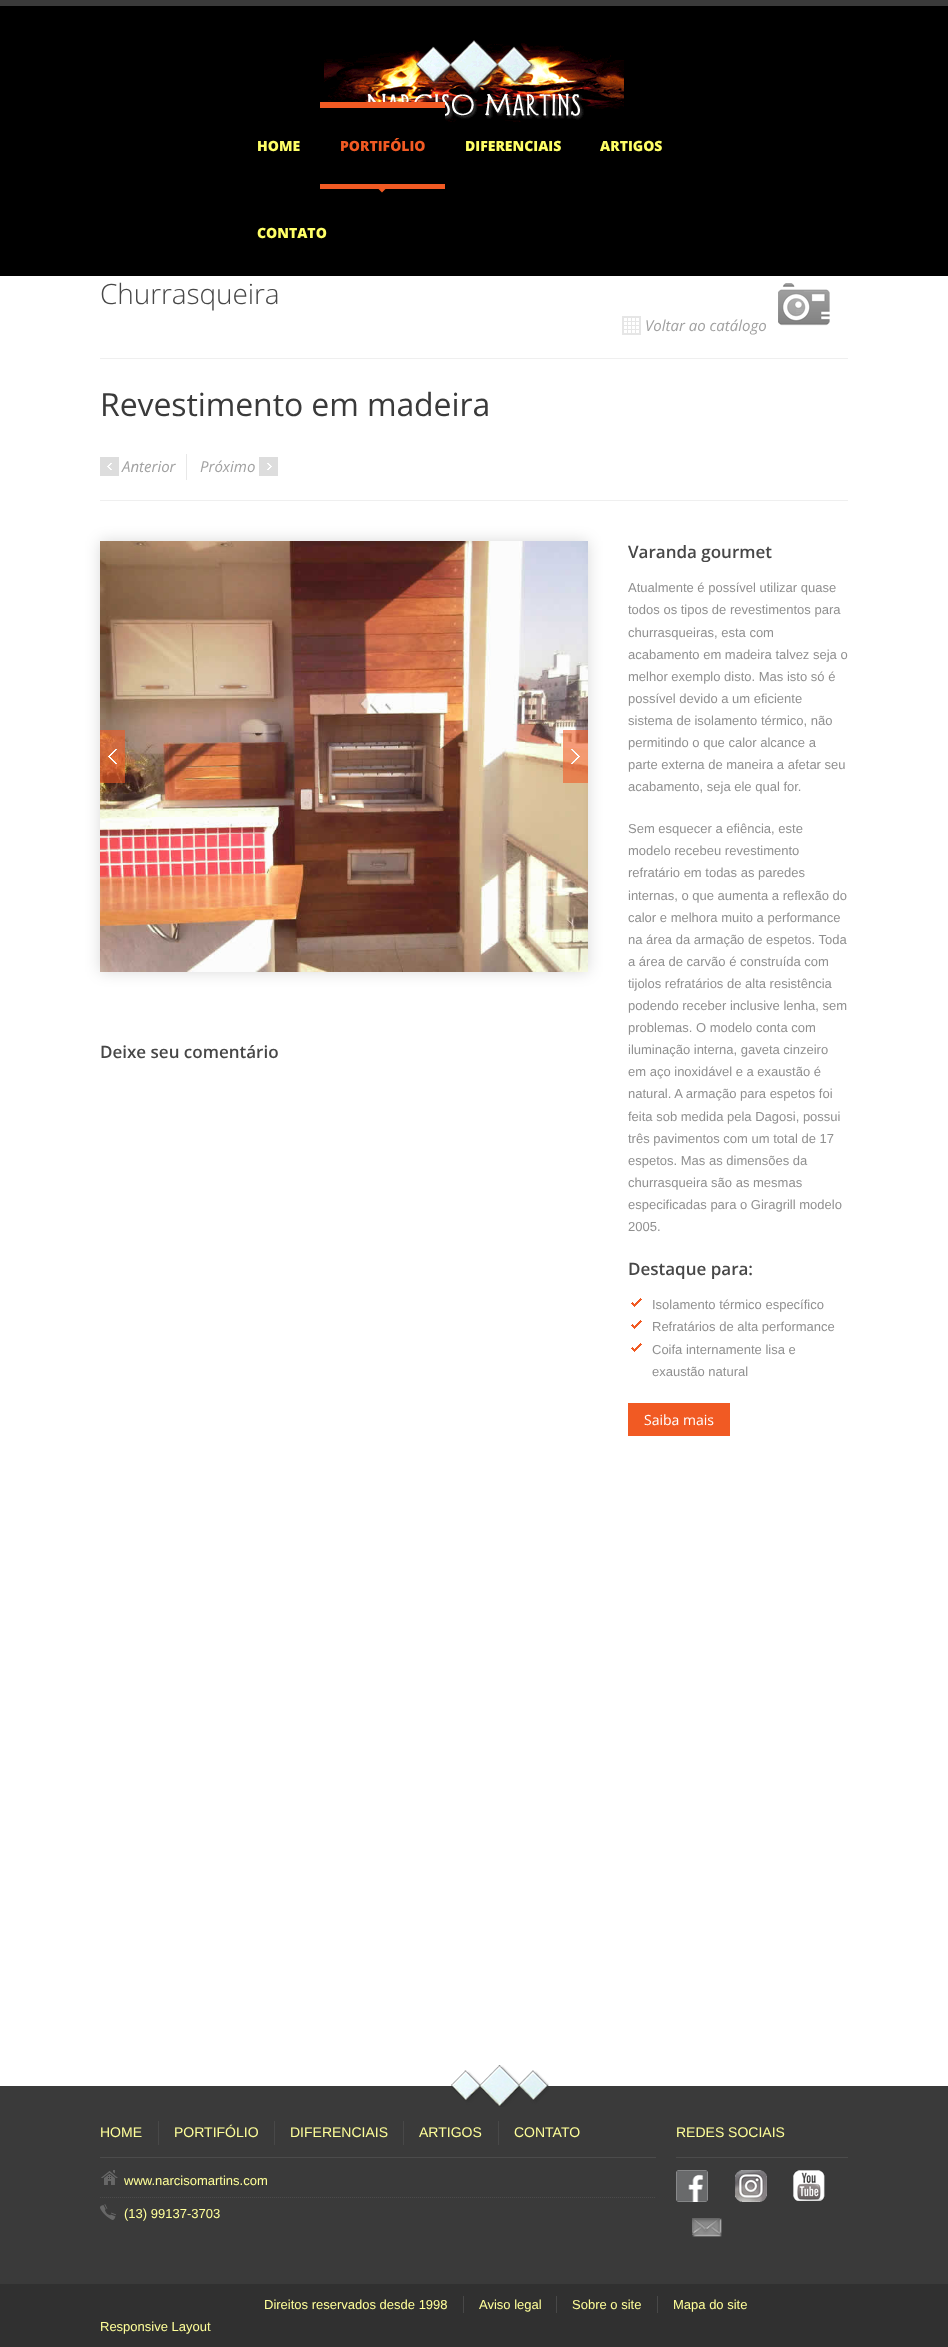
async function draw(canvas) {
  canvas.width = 948;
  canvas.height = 2347;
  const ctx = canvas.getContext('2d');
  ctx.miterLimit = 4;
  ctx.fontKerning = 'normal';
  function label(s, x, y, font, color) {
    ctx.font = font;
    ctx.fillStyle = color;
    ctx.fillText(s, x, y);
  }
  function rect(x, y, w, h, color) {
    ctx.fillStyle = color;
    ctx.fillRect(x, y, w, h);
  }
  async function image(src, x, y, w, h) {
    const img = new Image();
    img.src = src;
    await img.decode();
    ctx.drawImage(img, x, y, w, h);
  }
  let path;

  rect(0, 0, 948, 2347, '#fff');
  rect(0, 0, 948, 6, '#3a3a3a');
  rect(0, 6, 948, 270, '#000');
  await image('assets/img1.png', 324, 40, 300, 82);
  label('HOME', 257, 151, '800 14px Open Sans', '#ff6');
  rect(324, 108, 121, 14, '#000');
  rect(320, 102, 125, 6, '#f15a23');
  path = new Path2D('M382 185.5L385.5 189L382 192.5L378.5 189Z');
  ctx.fill(path);
  rect(320, 184, 125, 5, '#f15a23');
  label('PORTIFÓLIO', 340, 151, '800 14px Open Sans', '#f15a23');
  label('DIFERENCIAIS', 465, 151, '800 14px Open Sans', '#ff6');
  label('ARTIGOS', 600, 151, '800 14px Open Sans', '#ff6');
  label('CONTATO', 257, 238, '800 14px Open Sans', '#ff6');
  rect(100, 500, 748, 1, '#efefef');
  ctx.letterSpacing = '-0.1px';
  label('Churrasqueira', 100, 304, '300 28px Open Sans', '#474747');
  await image('assets/img2.png', 622, 316, 19, 19);
  ctx.letterSpacing = '0px';
  label('Voltar ao catálogo', 645, 331, 'italic 15px Open Sans', '#a1a1a1');
  await image('assets/img3.png', 778, 283, 52, 43);
  rect(100, 358, 748, 1, '#efefef');
  ctx.letterSpacing = '-0.1px';
  label('Revestimento em madeira', 100, 416, '32px Open Sans', '#3a3a3a');
  rect(186, 454, 1, 26, '#e8e8e8');
  rect(100, 457, 19, 19, '#ddd');
  await image('assets/img4.png', 107, 463, 5, 7);
  ctx.letterSpacing = '0px';
  label('Anterior', 122, 472, 'italic 15px Open Sans', '#a1a1a1');
  label('Próximo', 200, 472, 'italic 15px Open Sans', '#a1a1a1');
  rect(259, 457, 19, 19, '#ddd');
  await image('assets/img5.png', 267, 463, 5, 7);
  ctx.fillStyle = '#00000026';
  ctx.filter = 'blur(7.5px)';
  ctx.beginPath();
  ctx.rect(100, 541, 488, 431);
  ctx.fill();
  ctx.filter = 'none';
  await image('assets/img6.png', 100, 541, 488, 431);
  rect(100, 730, 25, 53, '#f15a2399');
  await image('assets/img7.png', 108, 749, 9, 15);
  rect(563, 730, 25, 53, '#f15a2399');
  await image('assets/img8.png', 571, 749, 9, 15);
  label('Deixe seu comentário', 100, 1058, '600 17px Open Sans', '#474747');
  label('Varanda gourmet', 628, 558, '600 17px Open Sans', '#474747');
  label('Atualmente é possível utilizar quase', 628, 592, '13px Liberation Sans', '#909090');
  label('todos os tipos de revestimentos para', 628, 614, '13px Liberation Sans', '#909090');
  label('churrasqueiras, esta com', 628, 637, '13px Liberation Sans', '#909090');
  label('acabamento em madeira talvez seja o', 628, 659, '13px Liberation Sans', '#909090');
  label('melhor exemplo disto. Mas isto só é', 628, 681, '13px Liberation Sans', '#909090');
  label('possível devido a um eficiente', 628, 703, '13px Liberation Sans', '#909090');
  label('sistema de isolamento térmico, não', 628, 725, '13px Liberation Sans', '#909090');
  label('permitindo o que calor alcance a', 628, 747, '13px Liberation Sans', '#909090');
  label('parte externa de maneira a afetar seu', 628, 769, '13px Liberation Sans', '#909090');
  label('acabamento, seja ele qual for.', 628, 791, '13px Liberation Sans', '#909090');
  label('Sem esquecer a efiência, este', 628, 833, '13px Liberation Sans', '#909090');
  label('modelo recebeu revestimento', 628, 855, '13px Liberation Sans', '#909090');
  label('refratário em todas as paredes', 628, 877, '13px Liberation Sans', '#909090');
  label('internas, o que aumenta a reflexão do', 628, 900, '13px Liberation Sans', '#909090');
  label('calor e melhora muito a performance', 628, 922, '13px Liberation Sans', '#909090');
  label('na área da armação de espetos. Toda', 628, 944, '13px Liberation Sans', '#909090');
  label('a área de carvão é construída com', 628, 966, '13px Liberation Sans', '#909090');
  label('tijolos refratários de alta resistência', 628, 988, '13px Liberation Sans', '#909090');
  label('podendo receber inclusive lenha, sem', 628, 1010, '13px Liberation Sans', '#909090');
  label('problemas. O modelo conta com', 628, 1032, '13px Liberation Sans', '#909090');
  label('iluminação interna, gaveta cinzeiro', 628, 1054, '13px Liberation Sans', '#909090');
  label('em aço inoxidável e a exaustão é', 628, 1076, '13px Liberation Sans', '#909090');
  label('natural. A armação para espetos foi', 628, 1098, '13px Liberation Sans', '#909090');
  label('feita sob medida pela Dagosi, possui', 628, 1121, '13px Liberation Sans', '#909090');
  label('três pavimentos com um total de 17', 628, 1143, '13px Liberation Sans', '#909090');
  label('espetos. Mas as dimensões da', 628, 1165, '13px Liberation Sans', '#909090');
  label('churrasqueira são as mesmas', 628, 1187, '13px Liberation Sans', '#909090');
  label('especificadas para o Giragrill modelo', 628, 1209, '13px Liberation Sans', '#909090');
  label('2005.', 628, 1231, '13px Liberation Sans', '#909090');
  label('Destaque para:', 628, 1275, '600 17px Open Sans', '#474747');
  await image('assets/img9.png', 631, 1298, 11, 9);
  label('Isolamento térmico específico', 652, 1309, '13px Liberation Sans', '#909090');
  await image('assets/img9.png', 631, 1320, 11, 9);
  label('Refratários de alta performance', 652, 1331, '13px Liberation Sans', '#909090');
  await image('assets/img9.png', 631, 1343, 11, 9);
  label('Coifa internamente lisa e', 652, 1354, '13px Liberation Sans', '#909090');
  label('exaustão natural', 652, 1376, '13px Liberation Sans', '#909090');
  rect(628, 1403, 102, 33, '#f15a23');
  label('Saiba mais', 644, 1425, '14px Open Sans', '#fff');
  rect(0, 2086, 948, 198, '#3a3a3a');
  await image('assets/img10.png', 451, 2065, 98, 42);
  rect(100, 2157, 556, 1, '#4b4b4b');
  label('HOME', 100, 2137, '14px Liberation Sans', '#ff9');
  rect(158, 2121, 1, 24, '#484848');
  label('PORTIFÓLIO', 174, 2137, '14px Liberation Sans', '#ff9');
  rect(274, 2121, 1, 24, '#484848');
  label('DIFERENCIAIS', 290, 2137, '14px Liberation Sans', '#ff9');
  rect(403, 2121, 1, 24, '#484848');
  label('ARTIGOS', 419, 2137, '14px Liberation Sans', '#ff9');
  rect(498, 2121, 1, 24, '#484848');
  label('CONTATO', 514, 2137, '14px Liberation Sans', '#ff9');
  await image('assets/img11.png', 101, 2170, 17, 15);
  path = new Path2D('M100 2197.5H656');
  ctx.strokeStyle = '#4b4b4b';
  ctx.setLineDash([1, 1]);
  ctx.stroke(path);
  label('www.narcisomartins.com', 124, 2185, '13px Liberation Sans', '#ff9');
  await image('assets/img12.png', 100, 2204, 16, 16);
  label('(13) 99137-3703', 124, 2218, '13px Liberation Sans', '#ff9');
  rect(676, 2157, 172, 1, '#4b4b4b');
  label('REDES SOCIAIS', 676, 2137, '14px Liberation Sans', '#ff9');
  await image('assets/img13.png', 676, 2170, 32, 32);
  await image('assets/img14.png', 735, 2170, 32, 32);
  await image('assets/img15.png', 793, 2170, 32, 31);
  await image('assets/img16.png', 692, 2218, 30, 19);
  rect(0, 2284, 948, 63, '#303030');
  label('Direitos reservados desde 1998', 264, 2309, '13px Liberation Sans', '#ff9');
  rect(463, 2296, 1, 17, '#484848');
  label('Aviso legal', 479, 2309, '13px Liberation Sans', '#ff9');
  rect(556, 2296, 1, 17, '#484848');
  label('Sobre o site', 572, 2309, '13px Liberation Sans', '#ff9');
  rect(657, 2296, 1, 17, '#484848');
  label('Mapa do site', 673, 2309, '13px Liberation Sans', '#ff9');
  label('Responsive Layout', 100, 2331, '13px Liberation Sans', '#ff9');
}

draw(document.querySelector('canvas'));
